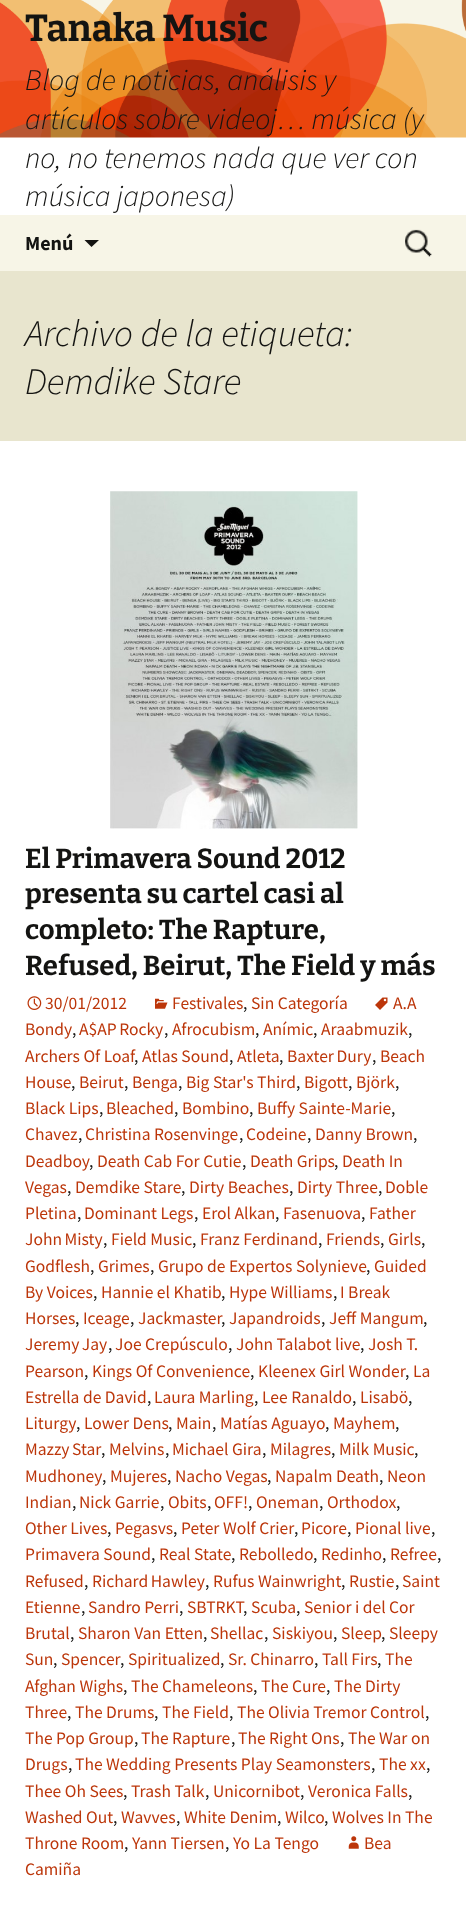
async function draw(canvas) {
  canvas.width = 466;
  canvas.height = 1920;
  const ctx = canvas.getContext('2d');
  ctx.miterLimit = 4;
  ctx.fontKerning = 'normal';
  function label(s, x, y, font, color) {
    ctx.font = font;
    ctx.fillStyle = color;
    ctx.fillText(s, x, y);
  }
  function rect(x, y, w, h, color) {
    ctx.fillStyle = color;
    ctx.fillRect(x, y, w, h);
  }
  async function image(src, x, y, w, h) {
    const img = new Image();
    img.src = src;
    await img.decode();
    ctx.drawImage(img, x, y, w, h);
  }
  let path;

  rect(0, 0, 466, 1920, '#fff');
  await image('assets/img1.png', 0, 0, 466, 138);
  label('Tanaka Music', 25, 41, 'bold 37.5px Bitter', '#141412');
  label('Blog de noticias, análisis y', 25, 90, 'italic 300 30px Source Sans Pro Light', '#141412');
  label('artículos sobre videoj… música (y', 25, 129, 'italic 300 30px Source Sans Pro Light', '#141412');
  label('no, no tenemos nada que ver con', 25, 168, 'italic 300 30px Source Sans Pro Light', '#141412');
  label('música japonesa)', 25, 206, 'italic 300 30px Source Sans Pro Light', '#141412');
  rect(0, 215, 466, 56, '#f7f5e7');
  label('Menú', 25, 250, 'bold 20px Source Sans Pro', '#141412');
  path = new Path2D('M84.5 240L91.5 247L99 240Z');
  ctx.fill(path);
  await image('assets/img2.png', 405, 229, 27, 28);
  rect(0, 271, 466, 170, '#e8e5ce');
  label('Archivo de la etiqueta:', 25, 346, 'italic 300 37.5px Source Sans Pro Light', '#141412');
  label('Demdike Stare', 25, 394, 'italic 300 37.5px Source Sans Pro Light', '#141412');
  await image('assets/img3.png', 110, 491, 248, 338);
  label('El Primavera Sound 2012', 25, 868, 'bold 27.5px Bitter', '#141412');
  label('presenta su cartel casi al', 25, 903, 'bold 27.5px Bitter', '#141412');
  label('completo: The Rapture,', 25, 939, 'bold 27.5px Bitter', '#141412');
  label('Refused, Beirut, The Field y más', 25, 975, 'bold 27.5px Bitter', '#141412');
  await image('assets/img4.png', 27, 996, 15, 14);
  label('30/01/2012', 45, 1009, '17.5px Source Sans Pro', '#bc360a');
  await image('assets/img5.png', 155, 998, 13, 11);
  label('Festivales', 172, 1009, '17.5px Source Sans Pro', '#bc360a');
  label(',', 243, 1009, '17.5px Source Sans Pro', '#141412');
  label('Sin Categoría', 251, 1009, '17.5px Source Sans Pro', '#bc360a');
  await image('assets/img6.png', 375, 997, 13, 13);
  label('A.A', 393, 1009, '17.5px Source Sans Pro', '#bc360a');
  label('Bondy', 25, 1035, '17.5px Source Sans Pro', '#bc360a');
  label(',', 72, 1035, '17.5px Source Sans Pro', '#141412');
  ctx.wordSpacing = '-1px';
  label('A$AP Rocky', 79, 1035, '17.5px Source Sans Pro', '#bc360a');
  ctx.wordSpacing = '0px';
  label(',', 164, 1035, '17.5px Source Sans Pro', '#141412');
  label('Afrocubism', 172, 1035, '17.5px Source Sans Pro', '#bc360a');
  label(',', 255, 1035, '17.5px Source Sans Pro', '#141412');
  label('Anímic', 263, 1035, '17.5px Source Sans Pro', '#bc360a');
  label(',', 313, 1035, '17.5px Source Sans Pro', '#141412');
  label('Araabmuzik', 321, 1035, '17.5px Source Sans Pro', '#bc360a');
  label(',', 408, 1035, '17.5px Source Sans Pro', '#141412');
  label('Archers Of Loaf', 25, 1062, '17.5px Source Sans Pro', '#bc360a');
  label(',', 134, 1062, '17.5px Source Sans Pro', '#141412');
  label('Atlas Sound', 142, 1062, '17.5px Source Sans Pro', '#bc360a');
  label(',', 229, 1062, '17.5px Source Sans Pro', '#141412');
  label('Atleta', 237, 1062, '17.5px Source Sans Pro', '#bc360a');
  label(',', 279, 1062, '17.5px Source Sans Pro', '#141412');
  ctx.wordSpacing = '-1px';
  label('Baxter Dury', 287, 1062, '17.5px Source Sans Pro', '#bc360a');
  ctx.wordSpacing = '0px';
  label(',', 372, 1062, '17.5px Source Sans Pro', '#141412');
  label('Beach', 380, 1062, '17.5px Source Sans Pro', '#bc360a');
  label('House', 25, 1088, '17.5px Source Sans Pro', '#bc360a');
  label(',', 71, 1088, '17.5px Source Sans Pro', '#141412');
  label('Beirut', 79, 1088, '17.5px Source Sans Pro', '#bc360a');
  label(',', 124, 1088, '17.5px Source Sans Pro', '#141412');
  label('Benga', 132, 1088, '17.5px Source Sans Pro', '#bc360a');
  label(',', 178, 1088, '17.5px Source Sans Pro', '#141412');
  label('Big Star\'s Third', 186, 1088, '17.5px Source Sans Pro', '#bc360a');
  label(',', 296, 1088, '17.5px Source Sans Pro', '#141412');
  label('Bigott', 304, 1088, '17.5px Source Sans Pro', '#bc360a');
  label(',', 348, 1088, '17.5px Source Sans Pro', '#141412');
  label('Björk', 356, 1088, '17.5px Source Sans Pro', '#bc360a');
  label(',', 395, 1088, '17.5px Source Sans Pro', '#141412');
  label('Black Lips', 25, 1114, '17.5px Source Sans Pro', '#bc360a');
  label(',', 99, 1114, '17.5px Source Sans Pro', '#141412');
  label('Bleached', 106, 1114, '17.5px Source Sans Pro', '#bc360a');
  label(',', 174, 1114, '17.5px Source Sans Pro', '#141412');
  label('Bombino', 182, 1114, '17.5px Source Sans Pro', '#bc360a');
  label(',', 249, 1114, '17.5px Source Sans Pro', '#141412');
  label('Buffy Sainte-Marie', 257, 1114, '17.5px Source Sans Pro', '#bc360a');
  label(',', 391, 1114, '17.5px Source Sans Pro', '#141412');
  label('Chavez', 25, 1140, '17.5px Source Sans Pro', '#bc360a');
  label(',', 78, 1140, '17.5px Source Sans Pro', '#141412');
  label('Christina Rosenvinge', 85, 1140, '17.5px Source Sans Pro', '#bc360a');
  label(',', 239, 1140, '17.5px Source Sans Pro', '#141412');
  label('Codeine', 246, 1140, '17.5px Source Sans Pro', '#bc360a');
  label(',', 307, 1140, '17.5px Source Sans Pro', '#141412');
  label('Danny Brown', 315, 1140, '17.5px Source Sans Pro', '#bc360a');
  label(',', 413, 1140, '17.5px Source Sans Pro', '#141412');
  label('Deadboy', 25, 1167, '17.5px Source Sans Pro', '#bc360a');
  label(',', 89, 1167, '17.5px Source Sans Pro', '#141412');
  label('Death Cab For Cutie', 97, 1167, '17.5px Source Sans Pro', '#bc360a');
  label(',', 242, 1167, '17.5px Source Sans Pro', '#141412');
  label('Death Grips', 250, 1167, '17.5px Source Sans Pro', '#bc360a');
  label(',', 334, 1167, '17.5px Source Sans Pro', '#141412');
  label('Death In', 342, 1167, '17.5px Source Sans Pro', '#bc360a');
  label('Vegas', 25, 1193, '17.5px Source Sans Pro', '#bc360a');
  label(',', 67, 1193, '17.5px Source Sans Pro', '#141412');
  label('Demdike Stare', 75, 1193, '17.5px Source Sans Pro', '#bc360a');
  label(',', 181, 1193, '17.5px Source Sans Pro', '#141412');
  label('Dirty Beaches', 189, 1193, '17.5px Source Sans Pro', '#bc360a');
  label(',', 289, 1193, '17.5px Source Sans Pro', '#141412');
  label('Dirty Three', 297, 1193, '17.5px Source Sans Pro', '#bc360a');
  label(',', 378, 1193, '17.5px Source Sans Pro', '#141412');
  label('Doble', 385, 1193, '17.5px Source Sans Pro', '#bc360a');
  label('Pletina', 25, 1219, '17.5px Source Sans Pro', '#bc360a');
  label(',', 77, 1219, '17.5px Source Sans Pro', '#141412');
  label('Dominant Legs', 84, 1219, '17.5px Source Sans Pro', '#bc360a');
  label(',', 194, 1219, '17.5px Source Sans Pro', '#141412');
  label('Erol Alkan', 202, 1219, '17.5px Source Sans Pro', '#bc360a');
  label(',', 275, 1219, '17.5px Source Sans Pro', '#141412');
  label('Fasenuova', 283, 1219, '17.5px Source Sans Pro', '#bc360a');
  label(',', 361, 1219, '17.5px Source Sans Pro', '#141412');
  label('Father', 369, 1219, '17.5px Source Sans Pro', '#bc360a');
  ctx.wordSpacing = '-1px';
  label('John Misty', 25, 1245, '17.5px Source Sans Pro', '#bc360a');
  ctx.wordSpacing = '0px';
  label(',', 103, 1245, '17.5px Source Sans Pro', '#141412');
  label('Field Music', 111, 1245, '17.5px Source Sans Pro', '#bc360a');
  label(',', 192, 1245, '17.5px Source Sans Pro', '#141412');
  label('Franz Ferdinand', 200, 1245, '17.5px Source Sans Pro', '#bc360a');
  label(',', 318, 1245, '17.5px Source Sans Pro', '#141412');
  label('Friends', 326, 1245, '17.5px Source Sans Pro', '#bc360a');
  label(',', 380, 1245, '17.5px Source Sans Pro', '#141412');
  label('Girls', 388, 1245, '17.5px Source Sans Pro', '#bc360a');
  label(',', 421, 1245, '17.5px Source Sans Pro', '#141412');
  label('Godflesh', 25, 1272, '17.5px Source Sans Pro', '#bc360a');
  label(',', 90, 1272, '17.5px Source Sans Pro', '#141412');
  label('Grimes', 98, 1272, '17.5px Source Sans Pro', '#bc360a');
  label(',', 150, 1272, '17.5px Source Sans Pro', '#141412');
  label('Grupo de Expertos Solynieve', 158, 1272, '17.5px Source Sans Pro', '#bc360a');
  label(',', 366, 1272, '17.5px Source Sans Pro', '#141412');
  label('Guided', 374, 1272, '17.5px Source Sans Pro', '#bc360a');
  label('By Voices', 25, 1298, '17.5px Source Sans Pro', '#bc360a');
  label(',', 93, 1298, '17.5px Source Sans Pro', '#141412');
  label('Hannie el Khatib', 101, 1298, '17.5px Source Sans Pro', '#bc360a');
  label(',', 221, 1298, '17.5px Source Sans Pro', '#141412');
  label('Hype Williams', 229, 1298, '17.5px Source Sans Pro', '#bc360a');
  label(',', 333, 1298, '17.5px Source Sans Pro', '#141412');
  label('I Break', 340, 1298, '17.5px Source Sans Pro', '#bc360a');
  label('Horses', 25, 1324, '17.5px Source Sans Pro', '#bc360a');
  label(',', 75, 1324, '17.5px Source Sans Pro', '#141412');
  label('Iceage', 83, 1324, '17.5px Source Sans Pro', '#bc360a');
  label(',', 130, 1324, '17.5px Source Sans Pro', '#141412');
  label('Jackmaster', 138, 1324, '17.5px Source Sans Pro', '#bc360a');
  label(',', 221, 1324, '17.5px Source Sans Pro', '#141412');
  label('Japandroids', 229, 1324, '17.5px Source Sans Pro', '#bc360a');
  label(',', 321, 1324, '17.5px Source Sans Pro', '#141412');
  label('Jeff Mangum', 329, 1324, '17.5px Source Sans Pro', '#bc360a');
  label(',', 423, 1324, '17.5px Source Sans Pro', '#141412');
  ctx.wordSpacing = '-1px';
  label('Jeremy Jay', 25, 1350, '17.5px Source Sans Pro', '#bc360a');
  ctx.wordSpacing = '0px';
  label(',', 108, 1350, '17.5px Source Sans Pro', '#141412');
  label('Joe Crepúsculo', 115, 1350, '17.5px Source Sans Pro', '#bc360a');
  label(',', 228, 1350, '17.5px Source Sans Pro', '#141412');
  label('John Talabot live', 236, 1350, '17.5px Source Sans Pro', '#bc360a');
  label(',', 360, 1350, '17.5px Source Sans Pro', '#141412');
  label('Josh T.', 368, 1350, '17.5px Source Sans Pro', '#bc360a');
  label('Pearson', 25, 1377, '17.5px Source Sans Pro', '#bc360a');
  label(',', 84, 1377, '17.5px Source Sans Pro', '#141412');
  label('Kings Of Convenience', 92, 1377, '17.5px Source Sans Pro', '#bc360a');
  label(',', 250, 1377, '17.5px Source Sans Pro', '#141412');
  label('Kleenex Girl Wonder', 258, 1377, '17.5px Source Sans Pro', '#bc360a');
  label(',', 405, 1377, '17.5px Source Sans Pro', '#141412');
  label('La', 413, 1377, '17.5px Source Sans Pro', '#bc360a');
  label('Estrella de David', 25, 1403, '17.5px Source Sans Pro', '#bc360a');
  label(',', 147, 1403, '17.5px Source Sans Pro', '#141412');
  label('Laura Marling', 154, 1403, '17.5px Source Sans Pro', '#bc360a');
  label(',', 254, 1403, '17.5px Source Sans Pro', '#141412');
  label('Lee Ranaldo', 262, 1403, '17.5px Source Sans Pro', '#bc360a');
  label(',', 352, 1403, '17.5px Source Sans Pro', '#141412');
  label('Lisabö', 360, 1403, '17.5px Source Sans Pro', '#bc360a');
  label(',', 408, 1403, '17.5px Source Sans Pro', '#141412');
  label('Liturgy', 25, 1429, '17.5px Source Sans Pro', '#bc360a');
  label(',', 76, 1429, '17.5px Source Sans Pro', '#141412');
  label('Lower Dens', 84, 1429, '17.5px Source Sans Pro', '#bc360a');
  label(',', 168, 1429, '17.5px Source Sans Pro', '#141412');
  label('Main', 176, 1429, '17.5px Source Sans Pro', '#bc360a');
  label(',', 212, 1429, '17.5px Source Sans Pro', '#141412');
  label('Matías Aguayo', 220, 1429, '17.5px Source Sans Pro', '#bc360a');
  label(',', 325, 1429, '17.5px Source Sans Pro', '#141412');
  label('Mayhem', 333, 1429, '17.5px Source Sans Pro', '#bc360a');
  label(',', 395, 1429, '17.5px Source Sans Pro', '#141412');
  ctx.wordSpacing = '-1px';
  label('Mazzy Star', 25, 1455, '17.5px Source Sans Pro', '#bc360a');
  ctx.wordSpacing = '0px';
  label(',', 101, 1455, '17.5px Source Sans Pro', '#141412');
  label('Melvins', 109, 1455, '17.5px Source Sans Pro', '#bc360a');
  label(',', 165, 1455, '17.5px Source Sans Pro', '#141412');
  label('Michael Gira', 172, 1455, '17.5px Source Sans Pro', '#bc360a');
  label(',', 262, 1455, '17.5px Source Sans Pro', '#141412');
  label('Milagres', 270, 1455, '17.5px Source Sans Pro', '#bc360a');
  label(',', 331, 1455, '17.5px Source Sans Pro', '#141412');
  label('Milk Music', 339, 1455, '17.5px Source Sans Pro', '#bc360a');
  label(',', 414, 1455, '17.5px Source Sans Pro', '#141412');
  label('Mudhoney', 25, 1482, '17.5px Source Sans Pro', '#bc360a');
  label(',', 102, 1482, '17.5px Source Sans Pro', '#141412');
  label('Mujeres', 110, 1482, '17.5px Source Sans Pro', '#bc360a');
  label(',', 167, 1482, '17.5px Source Sans Pro', '#141412');
  label('Nacho Vegas', 175, 1482, '17.5px Source Sans Pro', '#bc360a');
  label(',', 267, 1482, '17.5px Source Sans Pro', '#141412');
  label('Napalm Death', 275, 1482, '17.5px Source Sans Pro', '#bc360a');
  label(',', 379, 1482, '17.5px Source Sans Pro', '#141412');
  label('Neon', 387, 1482, '17.5px Source Sans Pro', '#bc360a');
  label('Indian', 25, 1508, '17.5px Source Sans Pro', '#bc360a');
  label(',', 72, 1508, '17.5px Source Sans Pro', '#141412');
  label('Nick Garrie', 79, 1508, '17.5px Source Sans Pro', '#bc360a');
  label(',', 160, 1508, '17.5px Source Sans Pro', '#141412');
  label('Obits', 168, 1508, '17.5px Source Sans Pro', '#bc360a');
  label(',', 207, 1508, '17.5px Source Sans Pro', '#141412');
  label('OFF!', 214, 1508, '17.5px Source Sans Pro', '#bc360a');
  label(',', 248, 1508, '17.5px Source Sans Pro', '#141412');
  label('Oneman', 256, 1508, '17.5px Source Sans Pro', '#bc360a');
  label(',', 319, 1508, '17.5px Source Sans Pro', '#141412');
  label('Orthodox', 327, 1508, '17.5px Source Sans Pro', '#bc360a');
  label(',', 396, 1508, '17.5px Source Sans Pro', '#141412');
  label('Other Lives', 25, 1534, '17.5px Source Sans Pro', '#bc360a');
  label(',', 107, 1534, '17.5px Source Sans Pro', '#141412');
  label('Pegasvs', 115, 1534, '17.5px Source Sans Pro', '#bc360a');
  label(',', 173, 1534, '17.5px Source Sans Pro', '#141412');
  label('Peter Wolf Crier', 181, 1534, '17.5px Source Sans Pro', '#bc360a');
  label(',', 294, 1534, '17.5px Source Sans Pro', '#141412');
  label('Picore', 301, 1534, '17.5px Source Sans Pro', '#bc360a');
  label(',', 347, 1534, '17.5px Source Sans Pro', '#141412');
  label('Pional live', 355, 1534, '17.5px Source Sans Pro', '#bc360a');
  label(',', 431, 1534, '17.5px Source Sans Pro', '#141412');
  label('Primavera Sound', 25, 1560, '17.5px Source Sans Pro', '#bc360a');
  label(',', 151, 1560, '17.5px Source Sans Pro', '#141412');
  label('Real State', 159, 1560, '17.5px Source Sans Pro', '#bc360a');
  label(',', 231, 1560, '17.5px Source Sans Pro', '#141412');
  label('Rebolledo', 239, 1560, '17.5px Source Sans Pro', '#bc360a');
  label(',', 313, 1560, '17.5px Source Sans Pro', '#141412');
  label('Redinho', 321, 1560, '17.5px Source Sans Pro', '#bc360a');
  label(',', 382, 1560, '17.5px Source Sans Pro', '#141412');
  label('Refree', 390, 1560, '17.5px Source Sans Pro', '#bc360a');
  label(',', 437, 1560, '17.5px Source Sans Pro', '#141412');
  label('Refused', 25, 1587, '17.5px Source Sans Pro', '#bc360a');
  label(',', 84, 1587, '17.5px Source Sans Pro', '#141412');
  ctx.wordSpacing = '-1px';
  label('Richard Hawley', 92, 1587, '17.5px Source Sans Pro', '#bc360a');
  ctx.wordSpacing = '0px';
  label(',', 205, 1587, '17.5px Source Sans Pro', '#141412');
  label('Rufus Wainwright', 213, 1587, '17.5px Source Sans Pro', '#bc360a');
  label(',', 341, 1587, '17.5px Source Sans Pro', '#141412');
  label('Rustie', 349, 1587, '17.5px Source Sans Pro', '#bc360a');
  label(',', 395, 1587, '17.5px Source Sans Pro', '#141412');
  label('Saint', 402, 1587, '17.5px Source Sans Pro', '#bc360a');
  label('Etienne', 25, 1613, '17.5px Source Sans Pro', '#bc360a');
  label(',', 81, 1613, '17.5px Source Sans Pro', '#141412');
  label('Sandro Perri', 88, 1613, '17.5px Source Sans Pro', '#bc360a');
  label(',', 179, 1613, '17.5px Source Sans Pro', '#141412');
  label('SBTRKT', 187, 1613, '17.5px Source Sans Pro', '#bc360a');
  label(',', 243, 1613, '17.5px Source Sans Pro', '#141412');
  label('Scuba', 251, 1613, '17.5px Source Sans Pro', '#bc360a');
  label(',', 296, 1613, '17.5px Source Sans Pro', '#141412');
  label('Senior i del Cor', 304, 1613, '17.5px Source Sans Pro', '#bc360a');
  label('Brutal', 25, 1639, '17.5px Source Sans Pro', '#bc360a');
  label(',', 70, 1639, '17.5px Source Sans Pro', '#141412');
  label('Sharon Van Etten', 78, 1639, '17.5px Source Sans Pro', '#bc360a');
  label(',', 203, 1639, '17.5px Source Sans Pro', '#141412');
  label('Shellac', 210, 1639, '17.5px Source Sans Pro', '#bc360a');
  label(',', 264, 1639, '17.5px Source Sans Pro', '#141412');
  label('Siskiyou', 272, 1639, '17.5px Source Sans Pro', '#bc360a');
  label(',', 333, 1639, '17.5px Source Sans Pro', '#141412');
  label('Sleep', 341, 1639, '17.5px Source Sans Pro', '#bc360a');
  label(',', 381, 1639, '17.5px Source Sans Pro', '#141412');
  label('Sleepy', 389, 1639, '17.5px Source Sans Pro', '#bc360a');
  label('Sun', 25, 1665, '17.5px Source Sans Pro', '#bc360a');
  label(',', 53, 1665, '17.5px Source Sans Pro', '#141412');
  label('Spencer', 61, 1665, '17.5px Source Sans Pro', '#bc360a');
  label('Spiritualized', 128, 1665, '17.5px Source Sans Pro', '#bc360a');
  label('Sr. Chinarro', 228, 1665, '17.5px Source Sans Pro', '#bc360a');
  label('Tall Firs', 322, 1665, '17.5px Source Sans Pro', '#bc360a');
  label('The', 385, 1665, '17.5px Source Sans Pro', '#bc360a');
  label(',', 120, 1665, '17.5px Source Sans Pro', '#141412');
  label(',', 220, 1665, '17.5px Source Sans Pro', '#141412');
  label(',', 314, 1665, '17.5px Source Sans Pro', '#141412');
  label(',', 377, 1665, '17.5px Source Sans Pro', '#141412');
  label('Afghan Wighs', 25, 1692, '17.5px Source Sans Pro', '#bc360a');
  label(',', 123, 1692, '17.5px Source Sans Pro', '#141412');
  label('The Chameleons', 131, 1692, '17.5px Source Sans Pro', '#bc360a');
  label(',', 253, 1692, '17.5px Source Sans Pro', '#141412');
  label('The Cure', 261, 1692, '17.5px Source Sans Pro', '#bc360a');
  label(',', 326, 1692, '17.5px Source Sans Pro', '#141412');
  label('The Dirty', 334, 1692, '17.5px Source Sans Pro', '#bc360a');
  label('Three', 25, 1718, '17.5px Source Sans Pro', '#bc360a');
  label(',', 67, 1718, '17.5px Source Sans Pro', '#141412');
  label('The Drums', 75, 1718, '17.5px Source Sans Pro', '#bc360a');
  label(',', 154, 1718, '17.5px Source Sans Pro', '#141412');
  label('The Field', 162, 1718, '17.5px Source Sans Pro', '#bc360a');
  label(',', 229, 1718, '17.5px Source Sans Pro', '#141412');
  label('The Olivia Tremor Control', 237, 1718, '17.5px Source Sans Pro', '#bc360a');
  label(',', 425, 1718, '17.5px Source Sans Pro', '#141412');
  label('The Pop Group', 25, 1744, '17.5px Source Sans Pro', '#bc360a');
  label(',', 134, 1744, '17.5px Source Sans Pro', '#141412');
  label('The Rapture', 141, 1744, '17.5px Source Sans Pro', '#bc360a');
  label(',', 231, 1744, '17.5px Source Sans Pro', '#141412');
  label('The Right Ons', 238, 1744, '17.5px Source Sans Pro', '#bc360a');
  label(',', 340, 1744, '17.5px Source Sans Pro', '#141412');
  label('The War on', 348, 1744, '17.5px Source Sans Pro', '#bc360a');
  label('Drugs', 25, 1770, '17.5px Source Sans Pro', '#bc360a');
  label(',', 68, 1770, '17.5px Source Sans Pro', '#141412');
  label('The Wedding Presents Play Seamonsters', 75, 1770, '17.5px Source Sans Pro', '#bc360a');
  label(',', 371, 1770, '17.5px Source Sans Pro', '#141412');
  label('The xx', 379, 1770, '17.5px Source Sans Pro', '#bc360a');
  label(',', 426, 1770, '17.5px Source Sans Pro', '#141412');
  label('Thee Oh Sees', 25, 1797, '17.5px Source Sans Pro', '#bc360a');
  label(',', 123, 1797, '17.5px Source Sans Pro', '#141412');
  label('Trash Talk', 131, 1797, '17.5px Source Sans Pro', '#bc360a');
  label(',', 205, 1797, '17.5px Source Sans Pro', '#141412');
  label('Unicornibot', 213, 1797, '17.5px Source Sans Pro', '#bc360a');
  label(',', 300, 1797, '17.5px Source Sans Pro', '#141412');
  label('Veronica Falls', 308, 1797, '17.5px Source Sans Pro', '#bc360a');
  label(',', 408, 1797, '17.5px Source Sans Pro', '#141412');
  label('Washed Out', 25, 1823, '17.5px Source Sans Pro', '#bc360a');
  label(',', 113, 1823, '17.5px Source Sans Pro', '#141412');
  label('Wavves', 121, 1823, '17.5px Source Sans Pro', '#bc360a');
  label(',', 176, 1823, '17.5px Source Sans Pro', '#141412');
  label('White Denim', 184, 1823, '17.5px Source Sans Pro', '#bc360a');
  label(',', 277, 1823, '17.5px Source Sans Pro', '#141412');
  label('Wilco', 285, 1823, '17.5px Source Sans Pro', '#bc360a');
  label(',', 324, 1823, '17.5px Source Sans Pro', '#141412');
  label('Wolves In The', 332, 1823, '17.5px Source Sans Pro', '#bc360a');
  label('Throne Room', 25, 1849, '17.5px Source Sans Pro', '#bc360a');
  label(',', 124, 1849, '17.5px Source Sans Pro', '#141412');
  label('Yann Tiersen', 132, 1849, '17.5px Source Sans Pro', '#bc360a');
  label(',', 225, 1849, '17.5px Source Sans Pro', '#141412');
  label('Yo La Tengo', 233, 1849, '17.5px Source Sans Pro', '#bc360a');
  await image('assets/img7.png', 348, 1836, 11, 13);
  label('Bea', 364, 1849, '17.5px Source Sans Pro', '#bc360a');
  label('Camiña', 25, 1875, '17.5px Source Sans Pro', '#bc360a');
}

draw(document.querySelector('canvas'));
